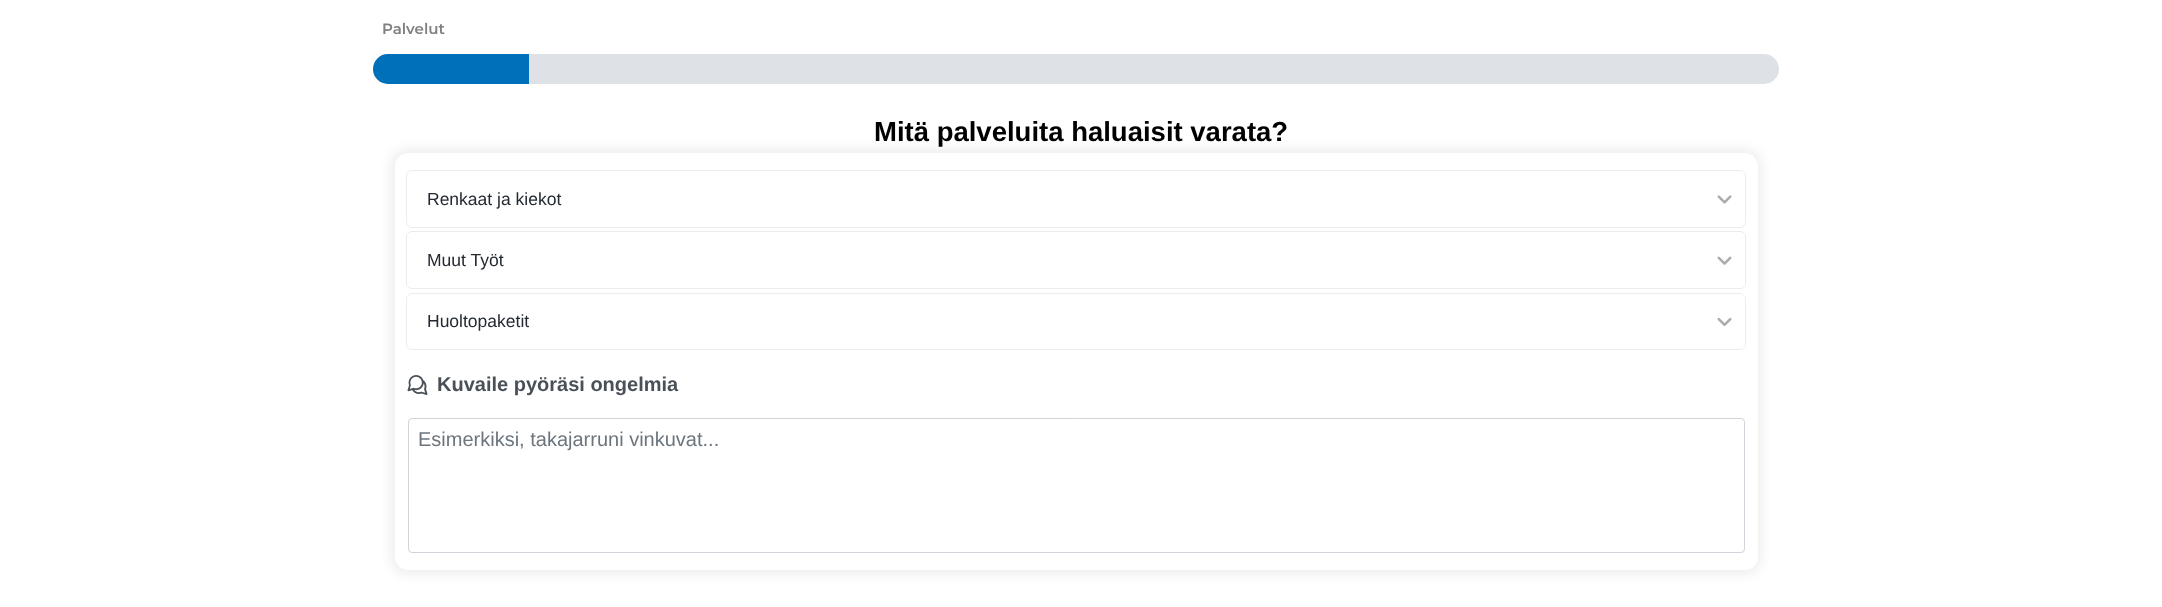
async function draw(canvas) {
  canvas.width = 2162;
  canvas.height = 607;
  const ctx = canvas.getContext('2d');
  ctx.miterLimit = 4;
  ctx.fontKerning = 'normal';
  function label(s, x, y, font, color) {
    ctx.font = font;
    ctx.fillStyle = color;
    ctx.fillText(s, x, y);
  }
  function rect(x, y, w, h, color) {
    ctx.fillStyle = color;
    ctx.fillRect(x, y, w, h);
  }
  function roundedRect(x, y, w, h, r, color) {
    ctx.fillStyle = color;
    ctx.beginPath();
    ctx.roundRect(x, y, w, h, r);
    ctx.fill();
  }
  async function image(src, x, y, w, h) {
    const img = new Image();
    img.src = src;
    await img.decode();
    ctx.drawImage(img, x, y, w, h);
  }

  rect(0, 0, 2162, 607, '#fff');
  label('Palvelut', 382, 34, '600 15px Montserrat', '#808080');
  roundedRect(373, 54, 1406, 30, 15, '#dee2e6');
  ctx.fillStyle = '#0070ba';
  ctx.beginPath();
  ctx.roundRect(373, 54, 156, 30, [15, 0, 0, 15]);
  ctx.fill();
  label('Mitä palveluita haluaisit varata?', 874, 141, 'bold 27.5px Liberation Sans', '#000');
  ctx.fillStyle = '#00000012';
  ctx.filter = 'blur(6px)';
  ctx.beginPath();
  ctx.roundRect(391, 149, 1370, 425, 16);
  ctx.fill();
  ctx.filter = 'none';
  roundedRect(395, 153, 1363, 417, 13, '#fff');
  ctx.beginPath();
  ctx.roundRect(406.5, 170.5, 1339, 57, 5.5);
  ctx.strokeStyle = '#ececec';
  ctx.stroke();
  roundedRect(408, 171, 1337, 55, 5, '#fff');
  label('Renkaat ja kiekot', 427, 205, '17.5px Liberation Sans', '#242a32');
  await image('assets/img1.png', 1717, 195, 15, 9);
  ctx.beginPath();
  ctx.roundRect(406.5, 231.5, 1339, 57, 5.5);
  ctx.stroke();
  roundedRect(408, 233, 1337, 55, 5, '#fff');
  label('Muut Työt', 427, 266, '17.5px Liberation Sans', '#242a32');
  await image('assets/img2.png', 1717, 256, 15, 9);
  ctx.beginPath();
  ctx.roundRect(406.5, 293.5, 1339, 56, 5.5);
  ctx.stroke();
  roundedRect(408, 294, 1337, 55, 5, '#fff');
  label('Huoltopaketit', 427, 327, '17.5px Liberation Sans', '#242a32');
  await image('assets/img3.png', 1717, 317, 15, 9);
  await image('assets/img4.png', 407, 375, 21, 20);
  label('Kuvaile pyöräsi ongelmia', 437, 391, 'bold 20px Liberation Sans', '#495057');
  ctx.beginPath();
  ctx.roundRect(408.5, 418.5, 1336, 134, 3.5);
  ctx.strokeStyle = '#ced4da';
  ctx.stroke();
  label('Esimerkiksi, takajarruni vinkuvat...', 418, 446, '20px Liberation Sans', '#6c757d');
}

draw(document.querySelector('canvas'));
